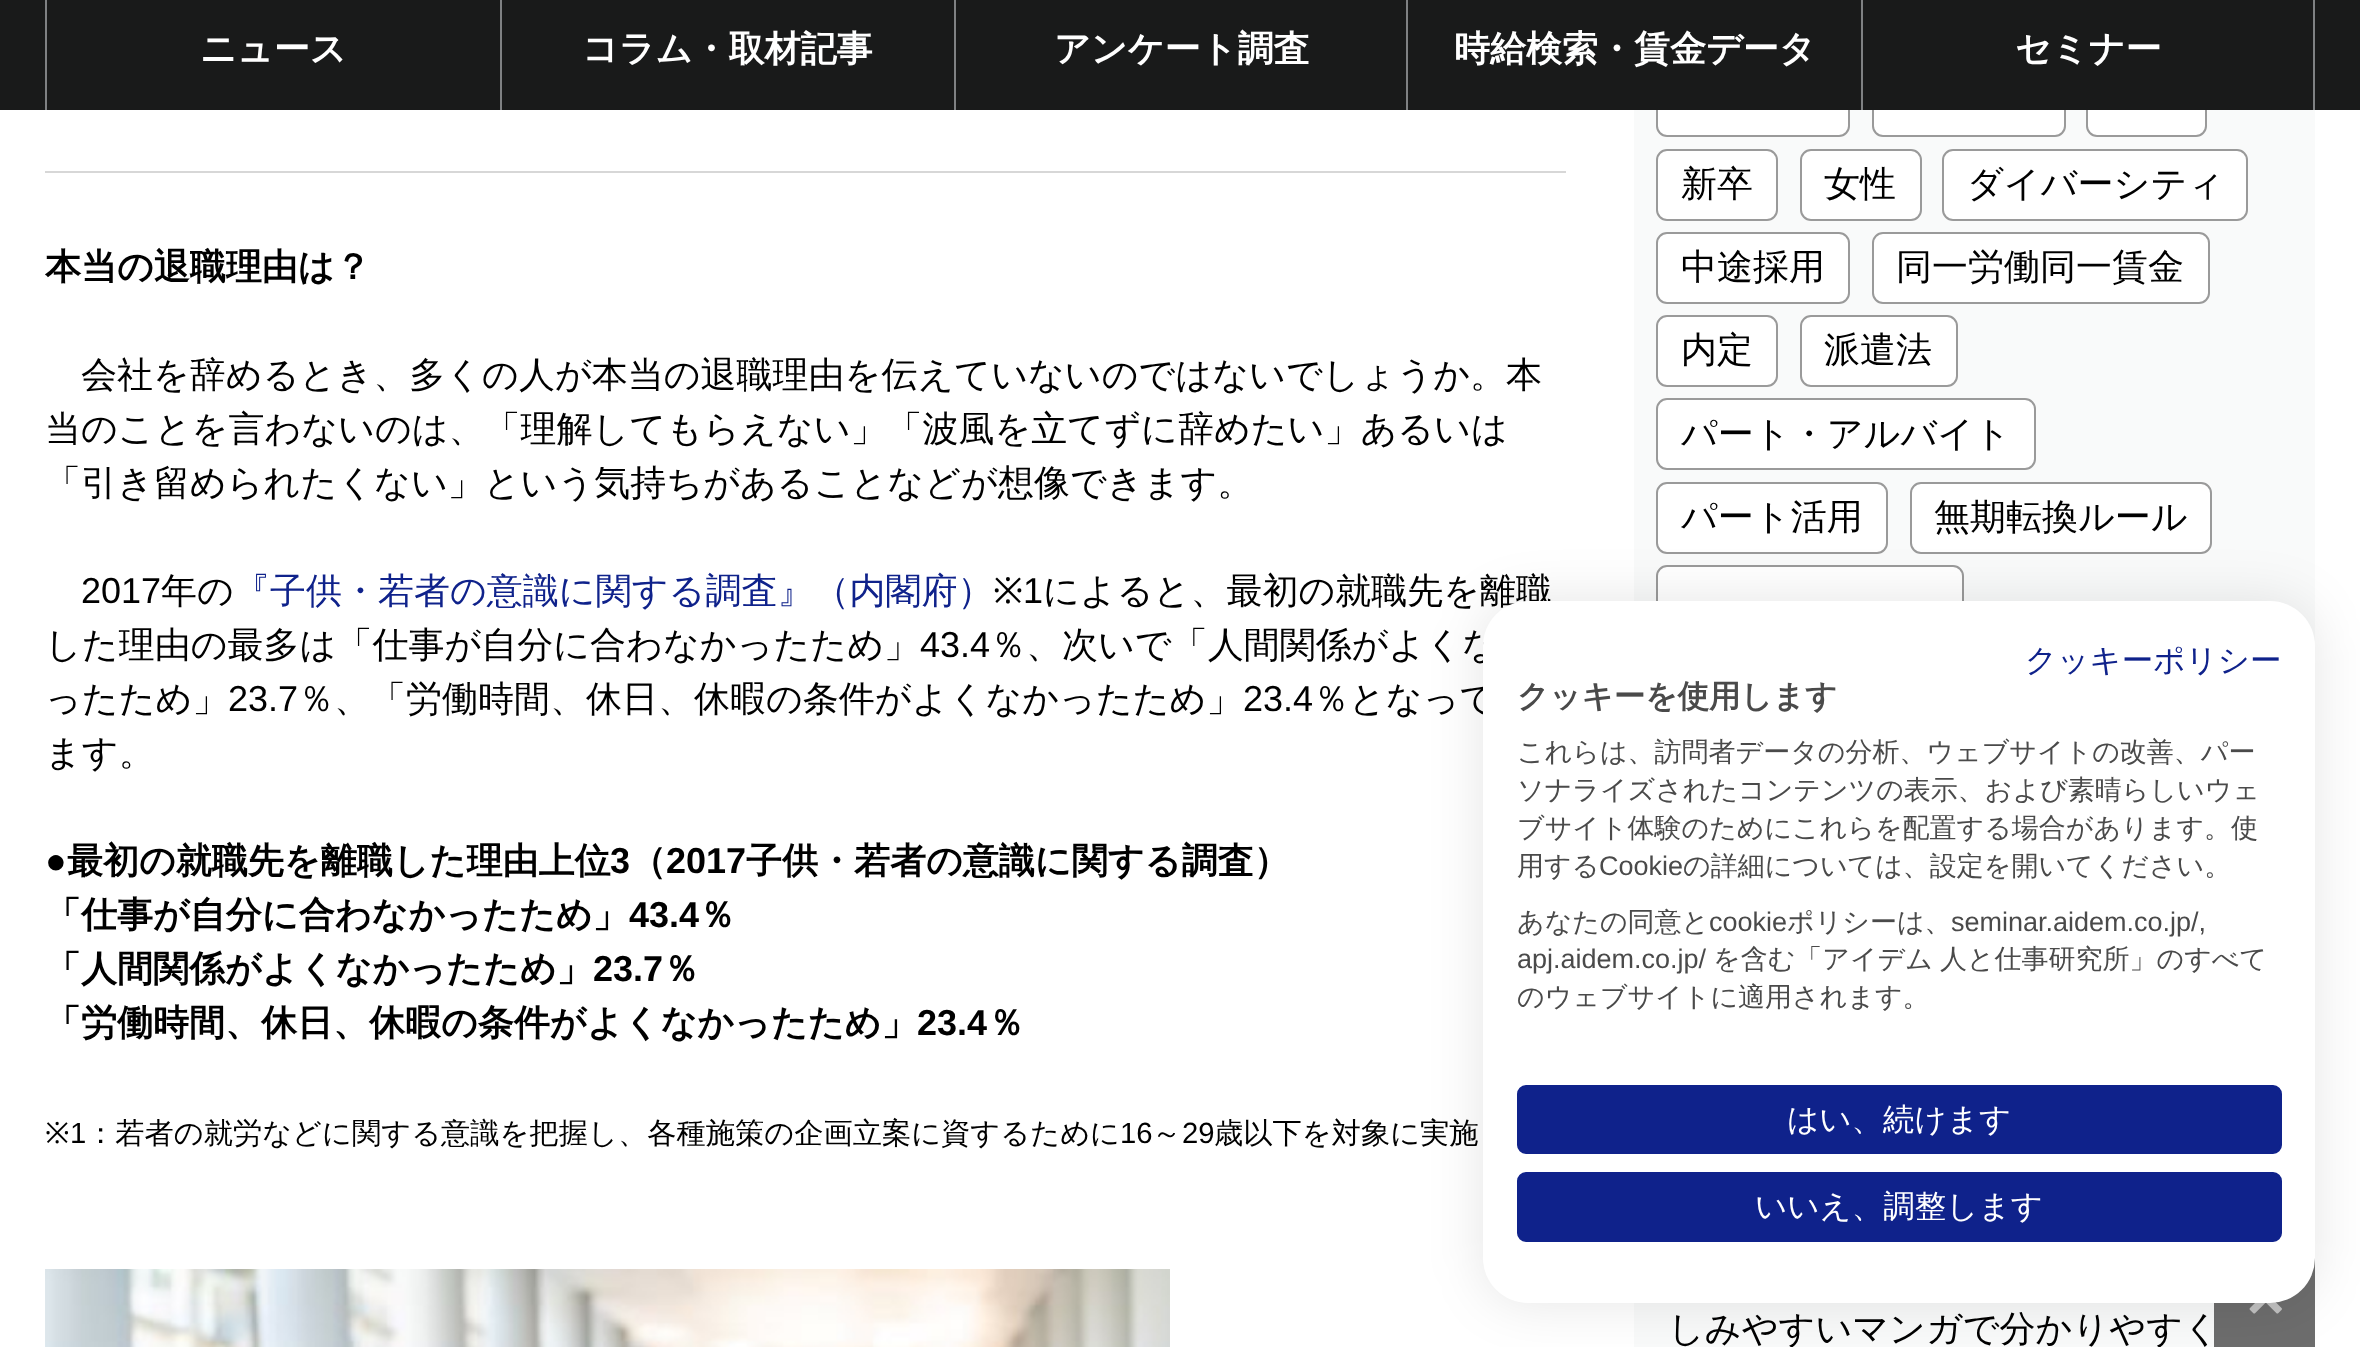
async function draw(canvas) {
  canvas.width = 2360;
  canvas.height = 1347;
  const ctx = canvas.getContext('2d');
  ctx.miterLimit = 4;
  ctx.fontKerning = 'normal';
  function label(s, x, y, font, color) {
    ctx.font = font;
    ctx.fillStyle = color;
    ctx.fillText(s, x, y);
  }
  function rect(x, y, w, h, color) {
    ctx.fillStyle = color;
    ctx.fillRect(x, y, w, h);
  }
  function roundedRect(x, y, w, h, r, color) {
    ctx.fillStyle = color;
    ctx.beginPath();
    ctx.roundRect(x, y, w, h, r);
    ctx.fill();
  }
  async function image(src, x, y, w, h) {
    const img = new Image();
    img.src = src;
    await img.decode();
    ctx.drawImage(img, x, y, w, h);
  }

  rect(0, 0, 2360, 1347, '#fff');
  rect(1634, 110, 681, 536, '#f9fafa');
  ctx.fillStyle = '#fff';
  ctx.beginPath();
  ctx.roundRect(1657, 66, 192, 70, 10);
  ctx.fill();
  ctx.strokeStyle = '#9a9a9a';
  ctx.lineWidth = 2;
  ctx.stroke();
  ctx.beginPath();
  ctx.roundRect(1873, 66, 192, 70, 10);
  ctx.fill();
  ctx.stroke();
  ctx.beginPath();
  ctx.roundRect(2087, 66, 119, 70, 10);
  ctx.fill();
  ctx.stroke();
  rect(0, 0, 2360, 110, '#191a1a');
  rect(45, 0, 2, 110, '#7f8183');
  label('ニュース', 200, 61, 'bold 36px WenQuanYi Zen Hei', '#fff');
  rect(500, 0, 2, 110, '#7f8183');
  label('コラム・取材記事', 582, 61, 'bold 36px WenQuanYi Zen Hei', '#fff');
  rect(954, 0, 2, 110, '#7f8183');
  label('アンケート調査', 1054, 61, 'bold 36px WenQuanYi Zen Hei', '#fff');
  rect(1406, 0, 2, 110, '#7f8183');
  label('時給検索・賃金データ', 1454, 61, 'bold 36px WenQuanYi Zen Hei', '#fff');
  rect(2313, 0, 2, 110, '#7f8183');
  rect(1861, 0, 2, 110, '#7f8183');
  label('セミナー', 2015, 61, 'bold 36px WenQuanYi Zen Hei', '#fff');
  rect(45, 171, 1521, 2, '#d7d7d7');
  label('本当の退職理由は？', 45, 279, 'bold 36px WenQuanYi Zen Hei', '#000');
  label('会社を辞めるとき、多くの人が本当の退職理由を伝えていないのではないでしょうか。本', 81, 387, '500 36px WenQuanYi Zen Hei', '#000');
  label('当のことを言わないのは、「理解してもらえない」「波風を立てずに辞めたい」あるいは', 45, 441, '500 36px WenQuanYi Zen Hei', '#000');
  label('「引き留められたくない」という気持ちがあることなどが想像できます。', 45, 495, '500 36px WenQuanYi Zen Hei', '#000');
  label('2017', 81, 603, '36px Liberation Sans', '#000');
  label('年の', 161, 603, '500 36px WenQuanYi Zen Hei', '#000');
  label('『子供・若者の意識に関する調査』（内閣府）', 234, 603, '500 36px WenQuanYi Zen Hei', '#0f228b');
  label('※', 993, 603, '36px Noto Sans', '#000');
  label('1', 1023, 603, '36px Liberation Sans', '#000');
  label('によると、最初の就職先を離職', 1043, 603, '500 36px WenQuanYi Zen Hei', '#000');
  label('した理由の最多は「仕事が自分に合わなかったため」', 45, 657, '500 36px WenQuanYi Zen Hei', '#000');
  label('43.4', 920, 657, '36px Liberation Sans', '#000');
  label('％、次いで「人間関係がよくな', 990, 657, '500 36px WenQuanYi Zen Hei', '#000');
  label('ったため」', 45, 711, '500 36px WenQuanYi Zen Hei', '#000');
  label('23.7', 228, 711, '36px Liberation Sans', '#000');
  label('％、「労働時間、休日、休暇の条件がよくなかったため」', 298, 711, '500 36px WenQuanYi Zen Hei', '#000');
  label('23.4', 1243, 711, '36px Liberation Sans', '#000');
  label('％となって', 1313, 711, '500 36px WenQuanYi Zen Hei', '#000');
  label('ます。', 45, 765, '500 36px WenQuanYi Zen Hei', '#000');
  label('●', 45, 873, 'bold 36px Liberation Sans', '#000');
  label('最初の就職先を離職した理由上位', 67, 873, 'bold 36px WenQuanYi Zen Hei', '#000');
  label('3', 610, 873, 'bold 36px Liberation Sans', '#000');
  label('（', 630, 873, 'bold 36px WenQuanYi Zen Hei', '#000');
  label('2017', 666, 873, 'bold 36px Liberation Sans', '#000');
  label('子供・若者の意識に関する調査）', 746, 873, 'bold 36px WenQuanYi Zen Hei', '#000');
  label('「仕事が自分に合わなかったため」', 45, 927, 'bold 36px WenQuanYi Zen Hei', '#000');
  label('43.4', 629, 927, 'bold 36px Liberation Sans', '#000');
  label('％', 699, 927, 'bold 36px WenQuanYi Zen Hei', '#000');
  label('「人間関係がよくなかったため」', 45, 981, 'bold 36px WenQuanYi Zen Hei', '#000');
  label('23.7', 593, 981, 'bold 36px Liberation Sans', '#000');
  label('％', 663, 981, 'bold 36px WenQuanYi Zen Hei', '#000');
  label('「労働時間、休日、休暇の条件がよくなかったため」', 45, 1035, 'bold 36px WenQuanYi Zen Hei', '#000');
  label('23.4', 917, 1035, 'bold 36px Liberation Sans', '#000');
  label('％', 988, 1035, 'bold 36px WenQuanYi Zen Hei', '#000');
  label('※', 45, 1143, '29.25px Noto Sans', '#000');
  label('1', 70, 1143, '29.25px Liberation Sans', '#000');
  label('：若者の就労などに関する意識を把握し、各種施策の企画立案に資するために', 86, 1143, '500 29.25px WenQuanYi Zen Hei', '#000');
  label('16', 1120, 1143, '29.25px Liberation Sans', '#000');
  label('～', 1152, 1143, '500 29.25px WenQuanYi Zen Hei', '#000');
  label('29', 1182, 1143, '29.25px Liberation Sans', '#000');
  label('歳以下を対象に実施', 1214, 1143, '500 29.25px WenQuanYi Zen Hei', '#000');
  await image('assets/img1.png', 45, 1269, 1125, 78);
  ctx.fillStyle = '#fff';
  ctx.beginPath();
  ctx.roundRect(1657, 150, 120, 70, 10);
  ctx.fill();
  ctx.stroke();
  label('新卒', 1681, 196, '500 36px WenQuanYi Zen Hei', '#000');
  ctx.fillStyle = '#fff';
  ctx.beginPath();
  ctx.roundRect(1801, 150, 120, 70, 10);
  ctx.fill();
  ctx.stroke();
  label('女性', 1824, 196, '500 36px WenQuanYi Zen Hei', '#000');
  ctx.fillStyle = '#fff';
  ctx.beginPath();
  ctx.roundRect(1943, 150, 304, 70, 10);
  ctx.fill();
  ctx.stroke();
  label('ダイバーシティ', 1967, 196, '500 36px WenQuanYi Zen Hei', '#000');
  ctx.fillStyle = '#fff';
  ctx.beginPath();
  ctx.roundRect(1657, 233, 192, 70, 10);
  ctx.fill();
  ctx.stroke();
  label('中途採用', 1681, 279, '500 36px WenQuanYi Zen Hei', '#000');
  ctx.fillStyle = '#fff';
  ctx.beginPath();
  ctx.roundRect(1873, 233, 336, 70, 10);
  ctx.fill();
  ctx.stroke();
  label('同一労働同一賃金', 1896, 279, '500 36px WenQuanYi Zen Hei', '#000');
  ctx.fillStyle = '#fff';
  ctx.beginPath();
  ctx.roundRect(1657, 316, 120, 70, 10);
  ctx.fill();
  ctx.stroke();
  label('内定', 1681, 362, '500 36px WenQuanYi Zen Hei', '#000');
  ctx.fillStyle = '#fff';
  ctx.beginPath();
  ctx.roundRect(1801, 316, 156, 70, 10);
  ctx.fill();
  ctx.stroke();
  label('派遣法', 1824, 362, '500 36px WenQuanYi Zen Hei', '#000');
  ctx.fillStyle = '#fff';
  ctx.beginPath();
  ctx.roundRect(1657, 399, 378, 70, 10);
  ctx.fill();
  ctx.stroke();
  label('パート・アルバイト', 1681, 446, '500 36px WenQuanYi Zen Hei', '#000');
  ctx.fillStyle = '#fff';
  ctx.beginPath();
  ctx.roundRect(1657, 483, 230, 70, 10);
  ctx.fill();
  ctx.stroke();
  label('パート活用', 1681, 529, '500 36px WenQuanYi Zen Hei', '#000');
  ctx.fillStyle = '#fff';
  ctx.beginPath();
  ctx.roundRect(1911, 483, 300, 70, 10);
  ctx.fill();
  ctx.stroke();
  label('無期転換ルール', 1934, 529, '500 36px WenQuanYi Zen Hei', '#000');
  ctx.fillStyle = '#fff';
  ctx.beginPath();
  ctx.roundRect(1657, 566, 306, 70, 10);
  ctx.fill();
  ctx.stroke();
  rect(1634, 1303, 580, 44, '#f9fafa');
  label('しみやすいマンガで分かりやすく', 1668, 1341, '500 36px WenQuanYi Zen Hei', '#000');
  rect(2214, 1258, 101, 89, '#6d6d6d');
  await image('assets/img2.png', 2249, 1302, 33, 12);
  ctx.fillStyle = '#0000001a';
  ctx.filter = 'blur(27px)';
  ctx.beginPath();
  ctx.roundRect(1483, 601, 832, 702, 45);
  ctx.fill();
  ctx.filter = 'none';
  roundedRect(1483, 601, 832, 702, 45, '#fff');
  label('クッキーポリシー', 2025, 671, '500 31.5px WenQuanYi Zen Hei', '#0f228b');
  label('クッキーを使用します', 1517, 707, 'bold 31.5px WenQuanYi Zen Hei', '#4a4a4a');
  label('これらは、訪問者データの分析、ウェブサイトの改善、パー', 1517, 761, '500 27px WenQuanYi Zen Hei', '#4a4a4a');
  label('ソナライズされたコンテンツの表示、および素晴らしいウェ', 1517, 799, '500 27px WenQuanYi Zen Hei', '#4a4a4a');
  label('ブサイト体験のためにこれらを配置する場合があります。使', 1517, 837, '500 27px WenQuanYi Zen Hei', '#4a4a4a');
  label('用する', 1517, 875, '500 27px WenQuanYi Zen Hei', '#4a4a4a');
  label('Cookie', 1599, 875, '27px Liberation Sans', '#4a4a4a');
  label('の詳細については、設定を開いてください。', 1683, 875, '500 27px WenQuanYi Zen Hei', '#4a4a4a');
  label('あなたの同意と', 1517, 931, '500 27px WenQuanYi Zen Hei', '#4a4a4a');
  label('cookie', 1709, 931, '27px Liberation Sans', '#4a4a4a');
  label('ポリシーは、', 1787, 931, '500 27px WenQuanYi Zen Hei', '#4a4a4a');
  label('seminar.aidem.co.jp/,', 1951, 931, '27px Liberation Sans', '#4a4a4a');
  label('apj.aidem.co.jp/', 1517, 968, '27px Liberation Sans', '#4a4a4a');
  ctx.wordSpacing = '-1px';
  label('を含む「アイデム 人と仕事研究所」のすべて', 1713, 968, '500 27px WenQuanYi Zen Hei', '#4a4a4a');
  ctx.wordSpacing = '0px';
  label('のウェブサイトに適用されます。', 1517, 1006, '500 27px WenQuanYi Zen Hei', '#4a4a4a');
  ctx.fillStyle = '#0f228b';
  ctx.beginPath();
  ctx.roundRect(1518, 1086, 763, 67, 8);
  ctx.fill();
  ctx.strokeStyle = '#0f228b';
  ctx.stroke();
  label('はい、続けます', 1787, 1130, '500 31.5px WenQuanYi Zen Hei', '#fff');
  ctx.fillStyle = '#0f228b';
  ctx.beginPath();
  ctx.roundRect(1518, 1173, 763, 68, 8);
  ctx.fill();
  ctx.stroke();
  label('いいえ、調整します', 1755, 1217, '500 31.5px WenQuanYi Zen Hei', '#fff');
}

draw(document.querySelector('canvas'));
